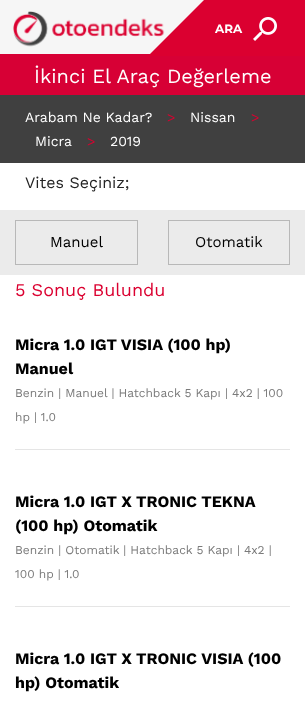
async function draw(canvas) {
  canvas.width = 305;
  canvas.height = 702;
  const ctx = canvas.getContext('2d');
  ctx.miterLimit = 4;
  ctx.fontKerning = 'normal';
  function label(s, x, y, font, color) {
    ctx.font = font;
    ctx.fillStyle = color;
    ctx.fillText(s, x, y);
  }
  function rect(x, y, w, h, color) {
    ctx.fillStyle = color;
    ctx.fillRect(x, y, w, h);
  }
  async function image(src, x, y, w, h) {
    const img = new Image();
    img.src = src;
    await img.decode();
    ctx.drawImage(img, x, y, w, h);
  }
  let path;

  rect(0, 0, 305, 702, '#fff');
  rect(0, 0, 204, 54, '#f6f6f6');
  rect(0, 54, 305, 41, '#d70035');
  ctx.save();
  ctx.beginPath();
  ctx.rect(78, 0, 227, 56);
  ctx.clip();
  ctx.fillStyle = '#db0030';
  path = new Path2D('M148 56L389-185L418-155L178 86Z');
  ctx.fill(path);
  ctx.restore();
  await image('assets/img1.png', 13, 11, 152, 36);
  rect(208, 0, 97, 56, '#db0030');
  label('ARA', 215, 33, '100 12px Montserrat', '#fff');
  await image('assets/img2.png', 253, 17, 24, 24);
  label('İkinci El Araç Değerleme', 34, 83, '20px Work Sans', '#fff');
  rect(0, 95, 305, 68, '#404040');
  label('Arabam Ne Kadar?', 25, 122, '14px Work Sans', '#fff');
  label('>', 167, 122, '14px Work Sans', '#db0030');
  label('Nissan', 190, 122, '14px Work Sans', '#fff');
  label('>', 251, 122, '14px Work Sans', '#db0030');
  label('Micra', 35, 146, '14px Work Sans', '#fff');
  label('>', 87, 146, '14px Work Sans', '#db0030');
  label('2019', 110, 146, '14px Work Sans', '#fff');
  label('Vites Seçiniz;', 25, 188, '16px Work Sans', '#232323');
  rect(0, 210, 305, 65, '#ebebeb');
  ctx.strokeStyle = '#b8b8b8';
  ctx.strokeRect(15.5, 220.5, 122, 44);
  label('Manuel', 50, 247, '15px Work Sans', '#000');
  ctx.strokeRect(168.5, 220.5, 121, 44);
  label('Otomatik', 195, 247, '15px Work Sans', '#000');
  label('5 Sonuç Bulundu', 15, 296, '18px Work Sans', '#db0030');
  rect(15, 449, 275, 1, '#e5e5e5');
  label('Micra 1.0 IGT VISIA (100 hp)', 15, 350, 'bold 16px Work Sans', '#000');
  label('Manuel', 15, 374, 'bold 16px Work Sans', '#000');
  label('Benzin | Manuel | Hatchback 5 Kapı | 4x2 | 100', 15, 397, '12px Work Sans', '#7a7a7a');
  label('hp | 1.0', 15, 421, '12px Work Sans', '#7a7a7a');
  rect(15, 606, 275, 1, '#e5e5e5');
  label('Micra 1.0 IGT X TRONIC TEKNA', 15, 507, 'bold 16px Work Sans', '#000');
  label('(100 hp) Otomatik', 15, 531, 'bold 16px Work Sans', '#000');
  label('Benzin | Otomatik | Hatchback 5 Kapı | 4x2 |', 15, 554, '12px Work Sans', '#7a7a7a');
  label('100 hp | 1.0', 15, 578, '12px Work Sans', '#7a7a7a');
  label('Micra 1.0 IGT X TRONIC VISIA (100', 15, 664, 'bold 16px Work Sans', '#000');
  label('hp) Otomatik', 15, 688, 'bold 16px Work Sans', '#000');
}

draw(document.querySelector('canvas'));
